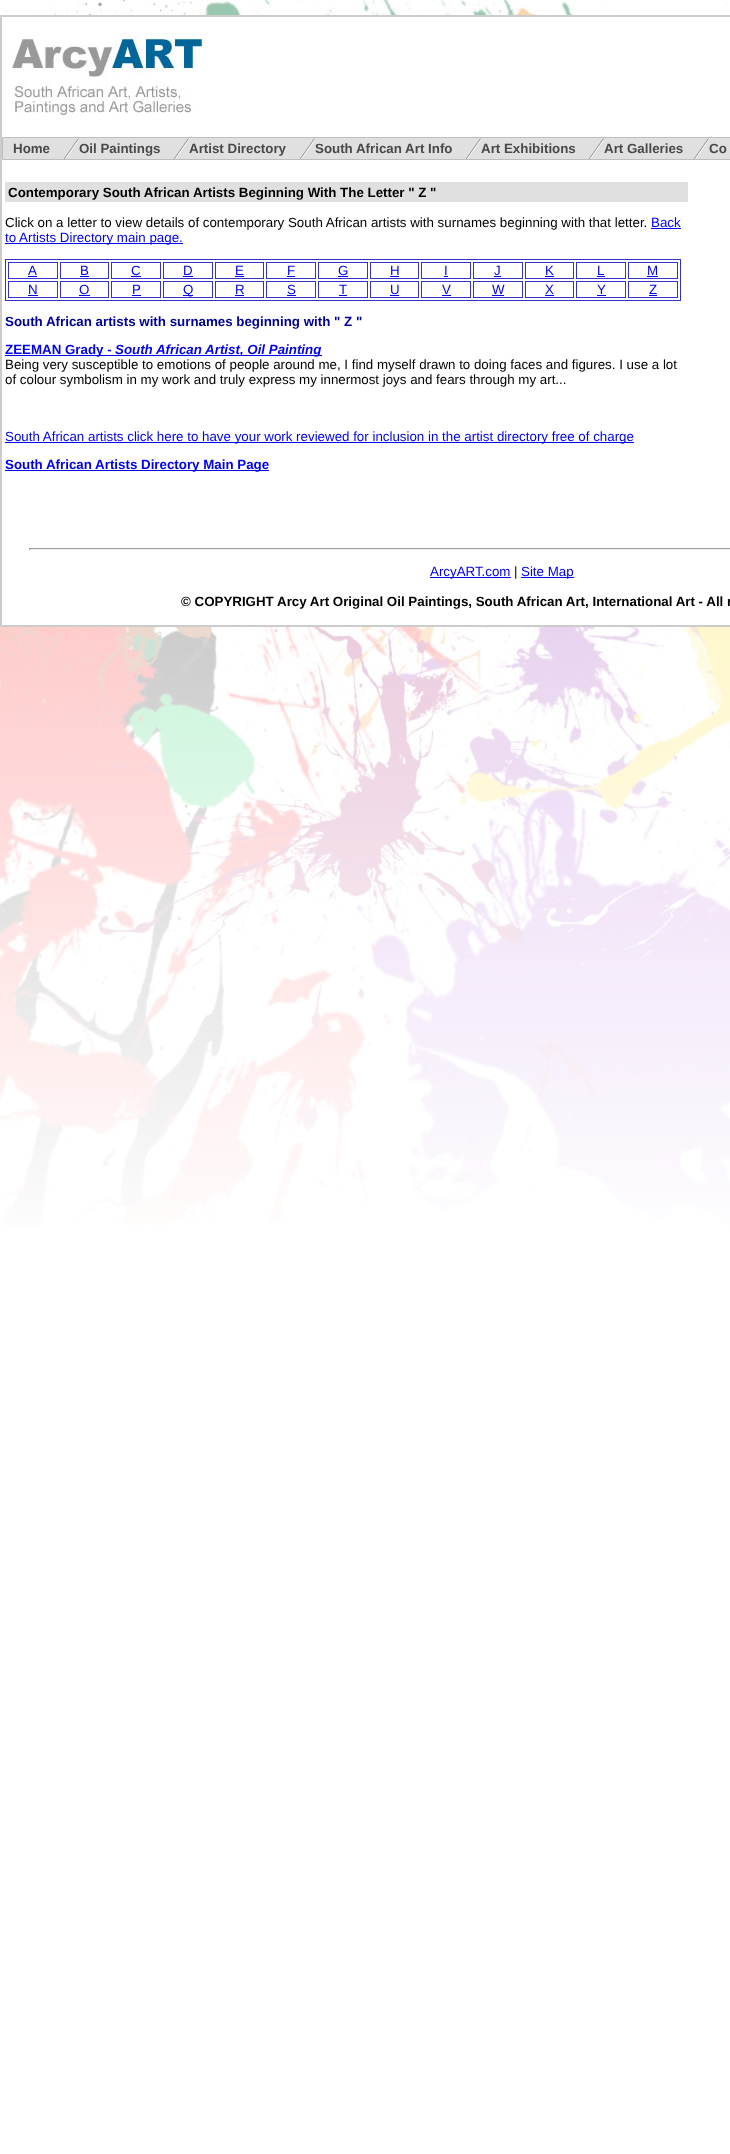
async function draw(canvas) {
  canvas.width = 730;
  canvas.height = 2154;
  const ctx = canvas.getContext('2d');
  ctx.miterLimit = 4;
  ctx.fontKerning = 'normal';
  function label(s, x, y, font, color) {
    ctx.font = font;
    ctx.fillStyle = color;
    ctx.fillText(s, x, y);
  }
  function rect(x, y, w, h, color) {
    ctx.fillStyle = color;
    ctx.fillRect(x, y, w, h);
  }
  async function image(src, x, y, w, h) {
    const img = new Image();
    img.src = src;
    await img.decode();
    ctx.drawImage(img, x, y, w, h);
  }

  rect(0, 0, 730, 2154, '#fff');
  await image('assets/img1.png', 0, 0, 730, 1225);
  ctx.strokeStyle = '#ccc';
  ctx.strokeRect(0.5, 15.5, 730, 611);
  ctx.beginPath();
  ctx.rect(1.5, 16.5, 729, 609);
  ctx.fill();
  ctx.stroke();
  await image('assets/img2.png', 11, 33, 191, 88);
  ctx.fillStyle = '#e0e0e0';
  ctx.beginPath();
  ctx.rect(2.5, 137.5, 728, 22);
  ctx.fill();
  ctx.strokeStyle = '#bebebe';
  ctx.stroke();
  label('Home', 13, 153, 'bold 13.33px Liberation Sans', '#494949');
  await image('assets/img3.png', 64, 138, 15, 21);
  label('Oil Paintings', 79, 153, 'bold 13.33px Liberation Sans', '#494949');
  await image('assets/img3.png', 174, 138, 15, 21);
  label('Artist Directory', 189, 153, 'bold 13.33px Liberation Sans', '#494949');
  await image('assets/img3.png', 300, 138, 15, 21);
  label('South African Art Info', 315, 153, 'bold 13.33px Liberation Sans', '#494949');
  await image('assets/img3.png', 466, 138, 15, 21);
  label('Art Exhibitions', 481, 153, 'bold 13.33px Liberation Sans', '#494949');
  await image('assets/img3.png', 589, 138, 15, 21);
  label('Art Galleries', 604, 153, 'bold 13.33px Liberation Sans', '#494949');
  await image('assets/img3.png', 694, 138, 15, 21);
  label('Co', 709, 153, 'bold 13.33px Liberation Sans', '#494949');
  rect(5, 182, 683, 20, '#e0e0e0');
  label('Contemporary South African Artists Beginning With The Letter " Z "', 8, 197, 'bold 13.33px Liberation Sans', '#000');
  label('Click on a letter to view details of contemporary South African artists with surnames beginning with that letter.', 5, 227, '13.33px Liberation Sans', '#000');
  label('Back', 651, 227, '13.33px Liberation Sans', '#00e');
  rect(651, 228, 30, 1, '#00e');
  rect(5, 243, 178, 1, '#00e');
  label('to Artists Directory main page.', 5, 242, '13.33px Liberation Sans', '#00e');
  ctx.strokeStyle = '#3332cb';
  ctx.strokeRect(5.5, 259.5, 675, 41);
  ctx.strokeRect(8.5, 262.5, 49, 16);
  label('A', 28, 275, '13.33px Liberation Sans', '#00e');
  rect(28, 276, 9, 1, '#00e');
  ctx.strokeRect(60.5, 262.5, 48, 16);
  label('B', 80, 275, '13.33px Liberation Sans', '#00e');
  rect(80, 276, 9, 1, '#00e');
  ctx.strokeRect(111.5, 262.5, 49, 16);
  label('C', 131, 275, '13.33px Liberation Sans', '#00e');
  rect(131, 276, 10, 1, '#00e');
  ctx.strokeRect(163.5, 262.5, 49, 16);
  label('D', 183, 275, '13.33px Liberation Sans', '#00e');
  rect(183, 276, 10, 1, '#00e');
  ctx.strokeRect(215.5, 262.5, 48, 16);
  label('E', 235, 275, '13.33px Liberation Sans', '#00e');
  rect(235, 276, 9, 1, '#00e');
  ctx.strokeRect(266.5, 262.5, 49, 16);
  label('F', 287, 275, '13.33px Liberation Sans', '#00e');
  rect(287, 276, 8, 1, '#00e');
  ctx.strokeRect(318.5, 262.5, 49, 16);
  label('G', 338, 275, '13.33px Liberation Sans', '#00e');
  rect(338, 276, 10, 1, '#00e');
  ctx.strokeRect(370.5, 262.5, 48, 16);
  label('H', 390, 275, '13.33px Liberation Sans', '#00e');
  rect(390, 276, 9, 1, '#00e');
  ctx.strokeRect(421.5, 262.5, 49, 16);
  label('I', 444, 275, '13.33px Liberation Sans', '#00e');
  rect(444, 276, 4, 1, '#00e');
  ctx.strokeRect(473.5, 262.5, 49, 16);
  label('J', 494, 275, '13.33px Liberation Sans', '#00e');
  rect(494, 276, 7, 1, '#00e');
  ctx.strokeRect(525.5, 262.5, 48, 16);
  label('K', 545, 275, '13.33px Liberation Sans', '#00e');
  rect(545, 276, 9, 1, '#00e');
  ctx.strokeRect(576.5, 262.5, 49, 16);
  label('L', 597, 275, '13.33px Liberation Sans', '#00e');
  rect(597, 276, 8, 1, '#00e');
  ctx.strokeRect(628.5, 262.5, 49, 16);
  label('M', 647, 275, '13.33px Liberation Sans', '#00e');
  rect(647, 276, 11, 1, '#00e');
  ctx.strokeRect(8.5, 281.5, 49, 16);
  label('N', 28, 294, '13.33px Liberation Sans', '#00e');
  rect(28, 295, 10, 1, '#00e');
  ctx.strokeRect(60.5, 281.5, 48, 16);
  label('O', 79, 294, '13.33px Liberation Sans', '#00e');
  rect(79, 295, 11, 1, '#00e');
  ctx.strokeRect(111.5, 281.5, 49, 16);
  label('P', 132, 294, '13.33px Liberation Sans', '#00e');
  rect(132, 295, 9, 1, '#00e');
  ctx.strokeRect(163.5, 281.5, 49, 16);
  rect(183, 295, 10, 1, '#00e');
  label('Q', 183, 294, '13.33px Liberation Sans', '#00e');
  ctx.strokeRect(215.5, 281.5, 48, 16);
  label('R', 235, 294, '13.33px Liberation Sans', '#00e');
  rect(235, 295, 9, 1, '#00e');
  ctx.strokeRect(266.5, 281.5, 49, 16);
  label('S', 287, 294, '13.33px Liberation Sans', '#00e');
  rect(287, 295, 9, 1, '#00e');
  ctx.strokeRect(318.5, 281.5, 49, 16);
  label('T', 339, 294, '13.33px Liberation Sans', '#00e');
  rect(339, 295, 8, 1, '#00e');
  ctx.strokeRect(370.5, 281.5, 48, 16);
  label('U', 390, 294, '13.33px Liberation Sans', '#00e');
  rect(390, 295, 9, 1, '#00e');
  ctx.strokeRect(421.5, 281.5, 49, 16);
  label('V', 442, 294, '13.33px Liberation Sans', '#00e');
  rect(442, 295, 9, 1, '#00e');
  ctx.strokeRect(473.5, 281.5, 49, 16);
  label('W', 492, 294, '13.33px Liberation Sans', '#00e');
  rect(492, 295, 12, 1, '#00e');
  ctx.strokeRect(525.5, 281.5, 48, 16);
  label('X', 545, 294, '13.33px Liberation Sans', '#00e');
  rect(545, 295, 9, 1, '#00e');
  ctx.strokeRect(576.5, 281.5, 49, 16);
  label('Y', 597, 294, '13.33px Liberation Sans', '#00e');
  rect(597, 295, 9, 1, '#00e');
  ctx.strokeRect(628.5, 281.5, 49, 16);
  label('Z', 649, 294, '13.33px Liberation Sans', '#00e');
  rect(649, 295, 8, 1, '#00e');
  label('South African artists with surnames beginning with " Z "', 5, 326, 'bold 13.33px Liberation Sans', '#009');
  rect(5, 355, 317, 1, '#00e');
  label('ZEEMAN Grady -', 5, 354, 'bold 13.33px Liberation Sans', '#00e');
  label('South African Artist, Oil Painting', 115, 354, 'italic bold 13.33px Liberation Sans', '#00e');
  label('Being very susceptible to emotions of people around me, I find myself drawn to doing faces and figures. I use a lot', 5, 369, '13.33px Liberation Sans', '#000');
  label('of colour symbolism in my work and truly express my innermost joys and fears through my art...', 5, 384, '13.33px Liberation Sans', '#000');
  rect(5, 442, 629, 1, '#00e');
  label('South African artists click here to have your work reviewed for inclusion in the artist directory free of charge', 5, 441, '13.33px Liberation Sans', '#00e');
  rect(5, 470, 264, 1, '#00e');
  label('South African Artists Directory Main Page', 5, 469, 'bold 13.33px Liberation Sans', '#00e');
  rect(29, 548, 701, 1, '#9f9f9f');
  rect(29, 549, 701, 1, '#eee');
  rect(29, 548, 1, 2, '#9f9f9f');
  rect(430, 577, 81, 1, '#00e');
  label('ArcyART.com', 430, 576, '13.33px Liberation Sans', '#00e');
  label('|', 514, 576, '13.33px Liberation Sans', '#000');
  rect(521, 577, 53, 1, '#00e');
  label('Site Map', 521, 576, '13.33px Liberation Sans', '#00e');
  label('© COPYRIGHT', 181, 606, 'bold 13.33px Liberation Sans', '#000');
  label('Arcy Art Original Oil Paintings, South African Art, International Art - All r', 277, 606, 'bold 13.33px Liberation Sans', '#000');
}

draw(document.querySelector('canvas'));
